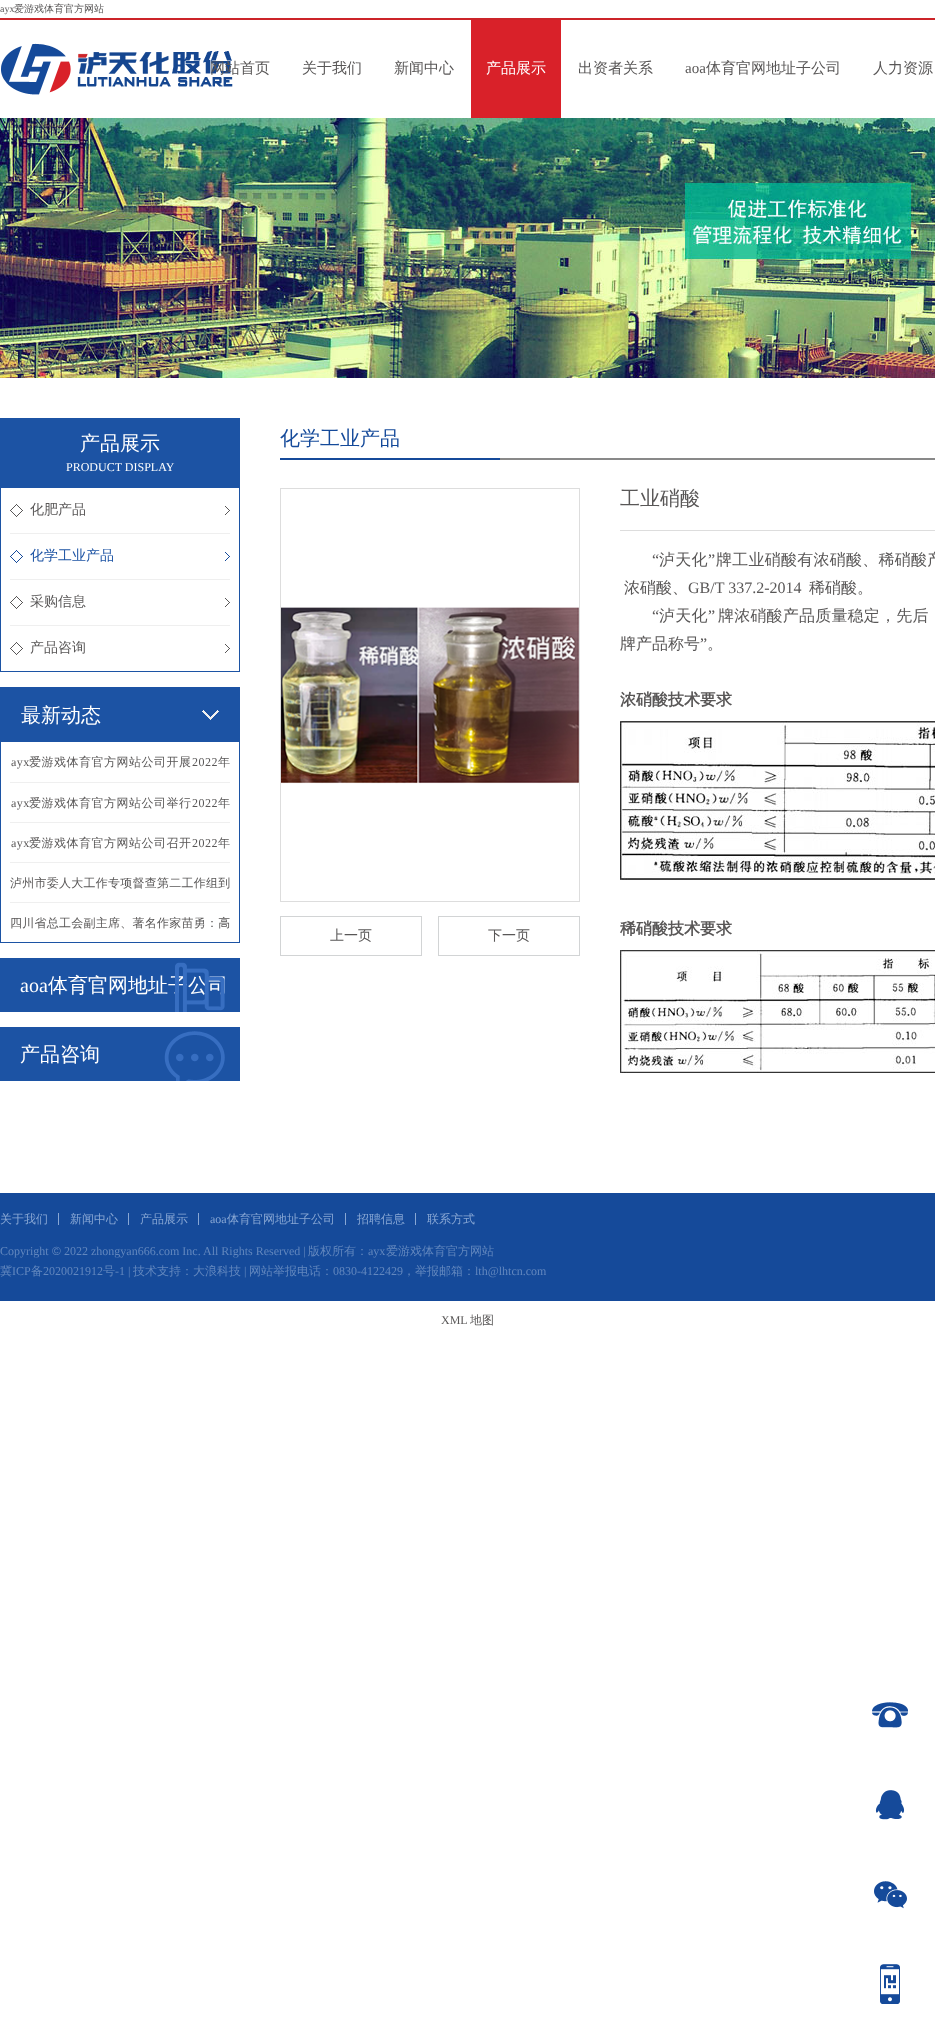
async function draw(canvas) {
  canvas.width = 935;
  canvas.height = 2029;
  const ctx = canvas.getContext('2d');
  ctx.miterLimit = 4;
  ctx.fontKerning = 'normal';
  function label(s, x, y, font, color) {
    ctx.font = font;
    ctx.fillStyle = color;
    ctx.fillText(s, x, y);
  }
  function rect(x, y, w, h, color) {
    ctx.fillStyle = color;
    ctx.fillRect(x, y, w, h);
  }
  async function image(src, x, y, w, h) {
    const img = new Image();
    img.src = src;
    await img.decode();
    ctx.drawImage(img, x, y, w, h);
  }

  rect(0, 0, 935, 2029, '#fff');
  label('ayx', 0, 12, '10px Liberation Serif', '#595757');
  label('爱游戏体育官方网站', 14, 12, '500 10px WenQuanYi Zen Hei', '#595757');
  rect(0, 18, 935, 2, '#cc2429');
  await image('assets/img1.png', 1, 43, 232, 52);
  label('网站首页', 210, 73, '500 15px WenQuanYi Zen Hei', '#595757');
  label('关于我们', 302, 73, '500 15px WenQuanYi Zen Hei', '#595757');
  label('新闻中心', 394, 73, '500 15px WenQuanYi Zen Hei', '#595757');
  rect(471, 20, 90, 98, '#d92129');
  label('产品展示', 486, 73, '500 15px WenQuanYi Zen Hei', '#fff');
  label('出资者关系', 578, 73, '500 15px WenQuanYi Zen Hei', '#595757');
  label('aoa', 685, 73, '15px Liberation Serif', '#595757');
  label('体育官网地址子公司', 706, 73, '500 15px WenQuanYi Zen Hei', '#595757');
  label('人力资源', 873, 73, '500 15px WenQuanYi Zen Hei', '#595757');
  await image('assets/img2.png', 0, 118, 935, 260);
  ctx.strokeStyle = '#1c53a4';
  ctx.strokeRect(0.5, 418.5, 239, 253);
  rect(1, 419, 238, 69, '#1c53a4');
  label('产品展示', 80, 450, '500 20px WenQuanYi Zen Hei', '#fff');
  label('PRODUCT DISPLAY', 66, 471, '12px Liberation Serif', '#fff');
  await image('assets/img3.png', 10, 504, 13, 13);
  label('化肥产品', 30, 514, '500 14px WenQuanYi Zen Hei', '#595757');
  await image('assets/img4.png', 225, 506, 5, 9);
  rect(10, 533, 220, 1, '#efefef');
  await image('assets/img5.png', 10, 550, 13, 13);
  label('化学工业产品', 30, 560, '500 14px WenQuanYi Zen Hei', '#1c53a4');
  await image('assets/img6.png', 225, 552, 5, 9);
  rect(10, 579, 220, 1, '#efefef');
  await image('assets/img3.png', 10, 596, 13, 13);
  label('采购信息', 30, 606, '500 14px WenQuanYi Zen Hei', '#595757');
  await image('assets/img4.png', 225, 598, 5, 9);
  rect(10, 625, 220, 1, '#efefef');
  await image('assets/img3.png', 10, 642, 13, 13);
  label('产品咨询', 30, 652, '500 14px WenQuanYi Zen Hei', '#595757');
  await image('assets/img4.png', 225, 644, 5, 9);
  ctx.strokeRect(0.5, 687.5, 239, 255);
  rect(1, 688, 238, 54, '#1c53a4');
  label('最新动态', 21, 722, '500 20px WenQuanYi Zen Hei', '#fff');
  await image('assets/img7.png', 202, 710, 17, 10);
  ctx.letterSpacing = '0.5px';
  label('ayx', 11, 766, '12px Liberation Serif', '#595757');
  label('爱游戏体育官方网站公司开展', 29, 766, '500 12px WenQuanYi Zen Hei', '#595757');
  label('2022', 192, 766, '12px Liberation Serif', '#595757');
  label('年', 218, 766, '500 12px WenQuanYi Zen Hei', '#595757');
  rect(10, 782, 220, 1, '#efefef');
  label('ayx', 11, 807, '12px Liberation Serif', '#595757');
  label('爱游戏体育官方网站公司举行', 29, 807, '500 12px WenQuanYi Zen Hei', '#595757');
  label('2022', 192, 807, '12px Liberation Serif', '#595757');
  label('年', 218, 807, '500 12px WenQuanYi Zen Hei', '#595757');
  rect(10, 822, 220, 1, '#efefef');
  label('ayx', 11, 847, '12px Liberation Serif', '#595757');
  label('爱游戏体育官方网站公司召开', 29, 847, '500 12px WenQuanYi Zen Hei', '#595757');
  label('2022', 192, 847, '12px Liberation Serif', '#595757');
  label('年', 218, 847, '500 12px WenQuanYi Zen Hei', '#595757');
  rect(10, 862, 220, 1, '#efefef');
  ctx.letterSpacing = '0.25px';
  label('泸州市委人大工作专项督查第二工作组到', 10, 887, '500 12px WenQuanYi Zen Hei', '#595757');
  rect(10, 902, 220, 1, '#efefef');
  label('四川省总工会副主席、著名作家苗勇：高', 10, 927, '500 12px WenQuanYi Zen Hei', '#595757');
  rect(0, 958, 240, 54, '#1c53a4');
  ctx.letterSpacing = '0px';
  label('aoa', 20, 992, '20px Liberation Serif', '#fff');
  label('体育官网地址子公司', 48, 992, '500 20px WenQuanYi Zen Hei', '#fff');
  await image('assets/img8.png', 175, 962, 50, 50);
  rect(0, 1027, 240, 54, '#1c53a4');
  label('产品咨询', 20, 1061, '500 20px WenQuanYi Zen Hei', '#fff');
  await image('assets/img9.png', 164, 1031, 61, 50);
  rect(500, 458, 435, 2, '#898989');
  rect(280, 458, 220, 2, '#154a9a');
  label('化学工业产品', 280, 445, '500 20px WenQuanYi Zen Hei', '#154a9a');
  label('工业硝酸', 620, 505, '500 20px WenQuanYi Zen Hei', '#595757');
  ctx.strokeStyle = '#ddd';
  ctx.strokeRect(280.5, 488.5, 299, 413);
  await image('assets/img10.png', 281, 607, 298, 177);
  ctx.strokeStyle = '#d2d4d5';
  ctx.strokeRect(280.5, 916.5, 141, 39);
  label('上一页', 330, 940, '500 14px WenQuanYi Zen Hei', '#595757');
  ctx.strokeRect(438.5, 916.5, 141, 39);
  label('下一页', 488, 940, '500 14px WenQuanYi Zen Hei', '#595757');
  rect(620, 530, 315, 1, '#ddd');
  ctx.letterSpacing = '0.25px';
  label('“', 652, 565, '16px Liberation Serif', '#595757');
  label('泸天化', 659, 565, '500 16px WenQuanYi Zen Hei', '#595757');
  label('”', 708, 565, '16px Liberation Serif', '#595757');
  label('牌工业硝酸有浓硝酸、稀硝酸产', 716, 565, '500 16px WenQuanYi Zen Hei', '#595757');
  ctx.letterSpacing = '0px';
  label('浓硝酸、', 624, 593, '500 16px WenQuanYi Zen Hei', '#595757');
  label('GB/T 337.2-2014', 688, 593, '16px Liberation Serif', '#595757');
  label('稀硝酸。', 809, 593, '500 16px WenQuanYi Zen Hei', '#595757');
  ctx.letterSpacing = '0.2px';
  label('“', 652, 621, '16px Liberation Serif', '#595757');
  label('泸天化', 659, 621, '500 16px WenQuanYi Zen Hei', '#595757');
  label('”', 708, 621, '16px Liberation Serif', '#595757');
  label('牌浓硝酸产品质量稳定，先后', 718, 621, '500 16px WenQuanYi Zen Hei', '#595757');
  ctx.letterSpacing = '0px';
  label('牌产品称号', 620, 649, '500 16px WenQuanYi Zen Hei', '#595757');
  label('”', 700, 649, '16px Liberation Serif', '#595757');
  label('。', 707, 649, '500 16px WenQuanYi Zen Hei', '#595757');
  label('浓硝酸技术要求', 620, 705, 'bold 16px WenQuanYi Zen Hei', '#595757');
  await image('assets/img11.png', 620, 721, 315, 159);
  label('稀硝酸技术要求', 620, 934, 'bold 16px WenQuanYi Zen Hei', '#595757');
  await image('assets/img12.png', 620, 950, 315, 123);
  rect(0, 1193, 935, 108, '#154a9a');
  label('关于我们', 0, 1223, '500 12px WenQuanYi Zen Hei', '#88a7d4');
  rect(58, 1213, 1, 12, '#88a7d4');
  label('新闻中心', 70, 1223, '500 12px WenQuanYi Zen Hei', '#88a7d4');
  rect(128, 1213, 1, 12, '#88a7d4');
  label('产品展示', 140, 1223, '500 12px WenQuanYi Zen Hei', '#88a7d4');
  rect(198, 1213, 1, 12, '#88a7d4');
  label('aoa', 210, 1223, '12px Liberation Serif', '#88a7d4');
  label('体育官网地址子公司', 227, 1223, '500 12px WenQuanYi Zen Hei', '#88a7d4');
  rect(345, 1213, 1, 12, '#88a7d4');
  label('招聘信息', 357, 1223, '500 12px WenQuanYi Zen Hei', '#88a7d4');
  rect(415, 1213, 1, 12, '#88a7d4');
  label('联系方式', 427, 1223, '500 12px WenQuanYi Zen Hei', '#88a7d4');
  label('Copyright', 0, 1255, '12px Liberation Serif', '#6287be');
  label('©', 52, 1255, '12px Liberation Sans', '#6287be');
  label('2022 zhongyan666.com Inc. All Rights Reserved |', 64, 1255, '12px Liberation Serif', '#6287be');
  label('版权所有：', 308, 1255, '500 12px WenQuanYi Zen Hei', '#6287be');
  label('ayx', 368, 1255, '12px Liberation Serif', '#6287be');
  label('爱游戏体育官方网站', 386, 1255, '500 12px WenQuanYi Zen Hei', '#6287be');
  label('冀', 0, 1275, '500 12px WenQuanYi Zen Hei', '#6287be');
  label('ICP', 12, 1275, '12px Liberation Serif', '#6287be');
  label('备', 31, 1275, '500 12px WenQuanYi Zen Hei', '#6287be');
  label('2020021912', 43, 1275, '12px Liberation Serif', '#6287be');
  label('号', 103, 1275, '500 12px WenQuanYi Zen Hei', '#6287be');
  label('-1 |', 115, 1275, '12px Liberation Serif', '#6287be');
  label('技术支持：大浪科技', 133, 1275, '500 12px WenQuanYi Zen Hei', '#6287be');
  label('|', 244, 1275, '12px Liberation Serif', '#6287be');
  label('网站举报电话：', 249, 1275, '500 12px WenQuanYi Zen Hei', '#6287be');
  label('0830-4122429', 333, 1275, '12px Liberation Serif', '#6287be');
  label('，举报邮箱：', 403, 1275, '500 12px WenQuanYi Zen Hei', '#6287be');
  label('lth@lhtcn.com', 475, 1275, '12px Liberation Serif', '#6287be');
  label('XML', 441, 1324, '12px Liberation Serif', '#595757');
  label('地图', 470, 1324, '500 12px WenQuanYi Zen Hei', '#595757');
  await image('assets/img13.png', 872, 1702, 36, 26);
  await image('assets/img14.png', 875, 1790, 30, 30);
  await image('assets/img15.png', 874, 1881, 33, 28);
  await image('assets/img16.png', 880, 1964, 20, 40);
}

draw(document.querySelector('canvas'));
